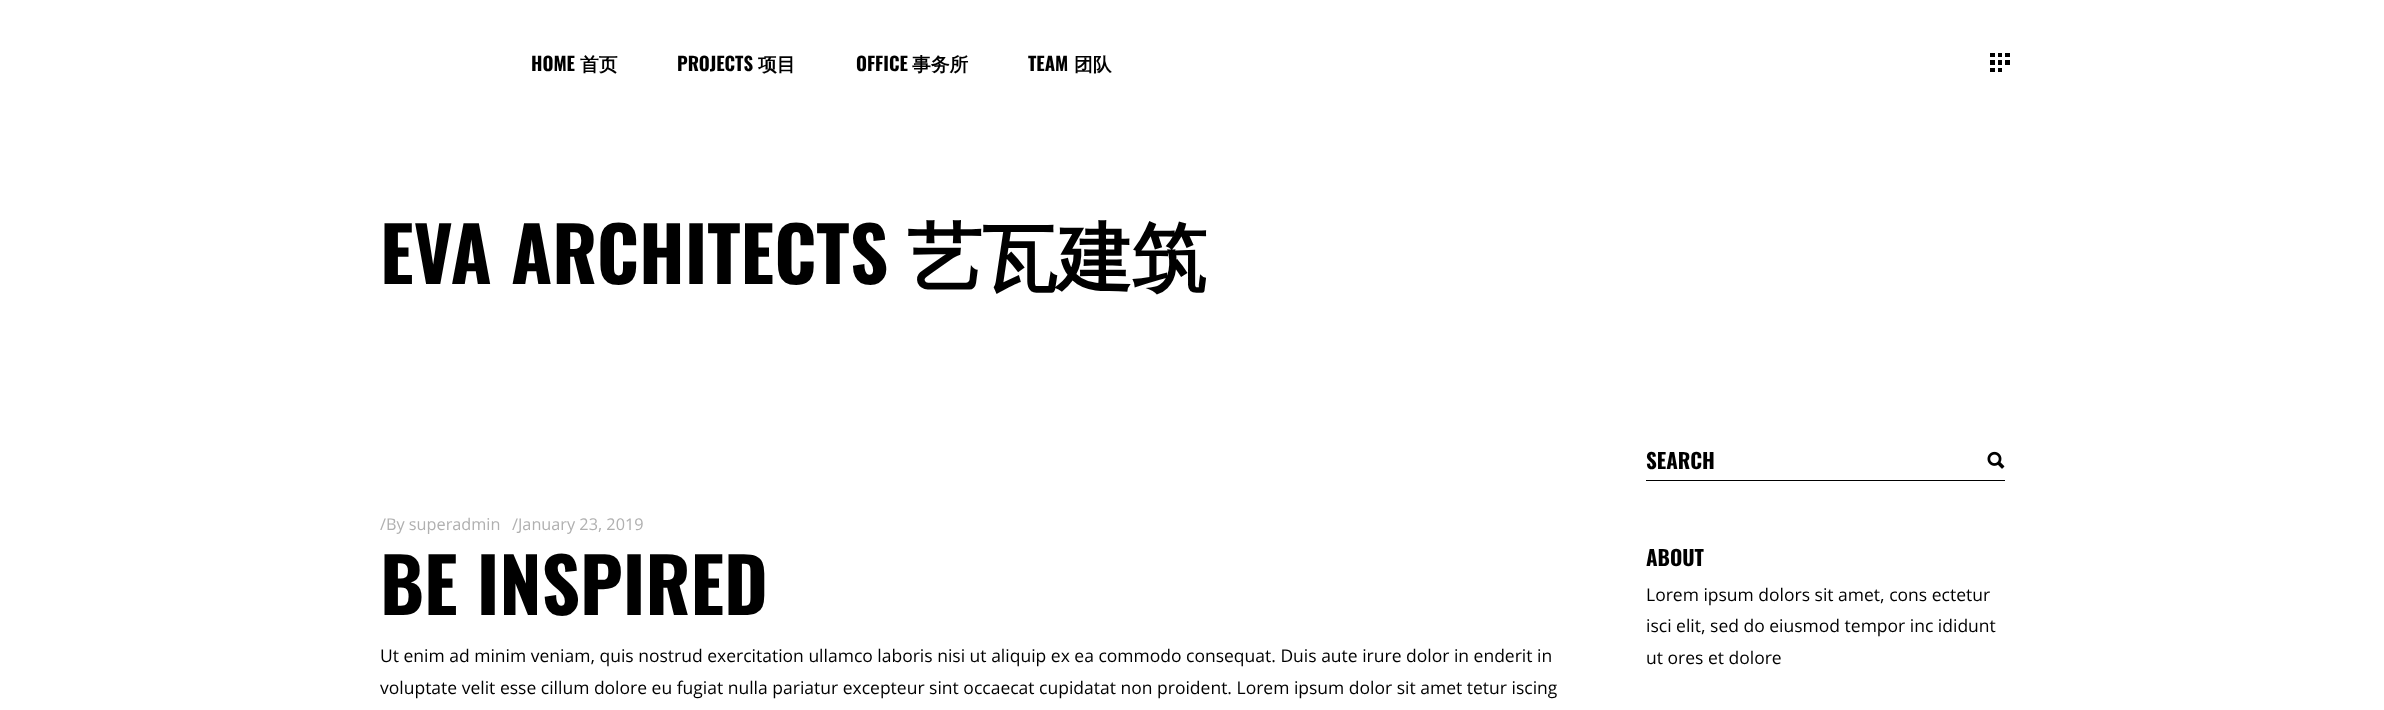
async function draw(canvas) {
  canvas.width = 2384;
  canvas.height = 710;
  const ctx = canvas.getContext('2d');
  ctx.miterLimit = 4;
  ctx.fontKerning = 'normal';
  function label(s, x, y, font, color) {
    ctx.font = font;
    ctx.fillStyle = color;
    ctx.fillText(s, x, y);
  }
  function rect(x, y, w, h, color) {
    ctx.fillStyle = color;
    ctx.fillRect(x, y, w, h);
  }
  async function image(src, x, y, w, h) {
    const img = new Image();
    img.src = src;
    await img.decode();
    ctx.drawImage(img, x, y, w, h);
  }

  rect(0, 0, 2384, 710, '#fff');
  label('HOME', 531, 71, 'bold 18.75px Oswald', '#000');
  label('首页', 580, 71, 'bold 18.75px WenQuanYi Zen Hei', '#000');
  label('PROJECTS', 677, 71, 'bold 18.75px Oswald', '#000');
  label('项目', 758, 71, 'bold 18.75px WenQuanYi Zen Hei', '#000');
  label('OFFICE', 856, 71, 'bold 18.75px Oswald', '#000');
  label('事务所', 912, 71, 'bold 18.75px WenQuanYi Zen Hei', '#000');
  label('TEAM', 1028, 71, 'bold 18.75px Oswald', '#000');
  label('团队', 1074, 71, 'bold 18.75px WenQuanYi Zen Hei', '#000');
  await image('assets/img1.png', 1990, 53, 20, 19);
  label('EVA ARCHITECTS', 380, 284, 'bold 75px Oswald', '#000');
  label('艺瓦建筑', 907, 284, 'bold 75px WenQuanYi Zen Hei', '#000');
  label('/', 380, 530, '16.25px Open Sans', '#b0b0b0');
  label('By superadmin', 386, 530, '16.25px Open Sans', '#b0b0b0');
  label('/', 512, 530, '16.25px Open Sans', '#b0b0b0');
  label('January 23, 2019', 518, 530, '16.25px Open Sans', '#b0b0b0');
  label('BE INSPIRED', 380, 615, 'bold 75px Oswald', '#000');
  label('Ut enim ad minim veniam, quis nostrud exercitation ullamco laboris nisi ut aliquip ex ea commodo consequat. Duis aute irure dolor in enderit in', 380, 662, '17.5px Open Sans', '#000');
  label('voluptate velit esse cillum dolore eu fugiat nulla pariatur excepteur sint occaecat cupidatat non proident. Lorem ipsum dolor sit amet tetur iscing', 380, 694, '17.5px Open Sans', '#000');
  rect(1646, 480, 359, 1, '#000');
  label('SEARCH', 1646, 469, 'bold 21px Oswald', '#000');
  await image('assets/img2.png', 1987, 451, 18, 18);
  label('ABOUT', 1646, 566, 'bold 21px Oswald', '#000');
  label('Lorem ipsum dolors sit amet, cons ectetur', 1646, 601, '17.5px Open Sans', '#000');
  label('isci elit, sed do eiusmod tempor inc ididunt', 1646, 632, '17.5px Open Sans', '#000');
  label('ut ores et dolore', 1646, 664, '17.5px Open Sans', '#000');
}

draw(document.querySelector('canvas'));
